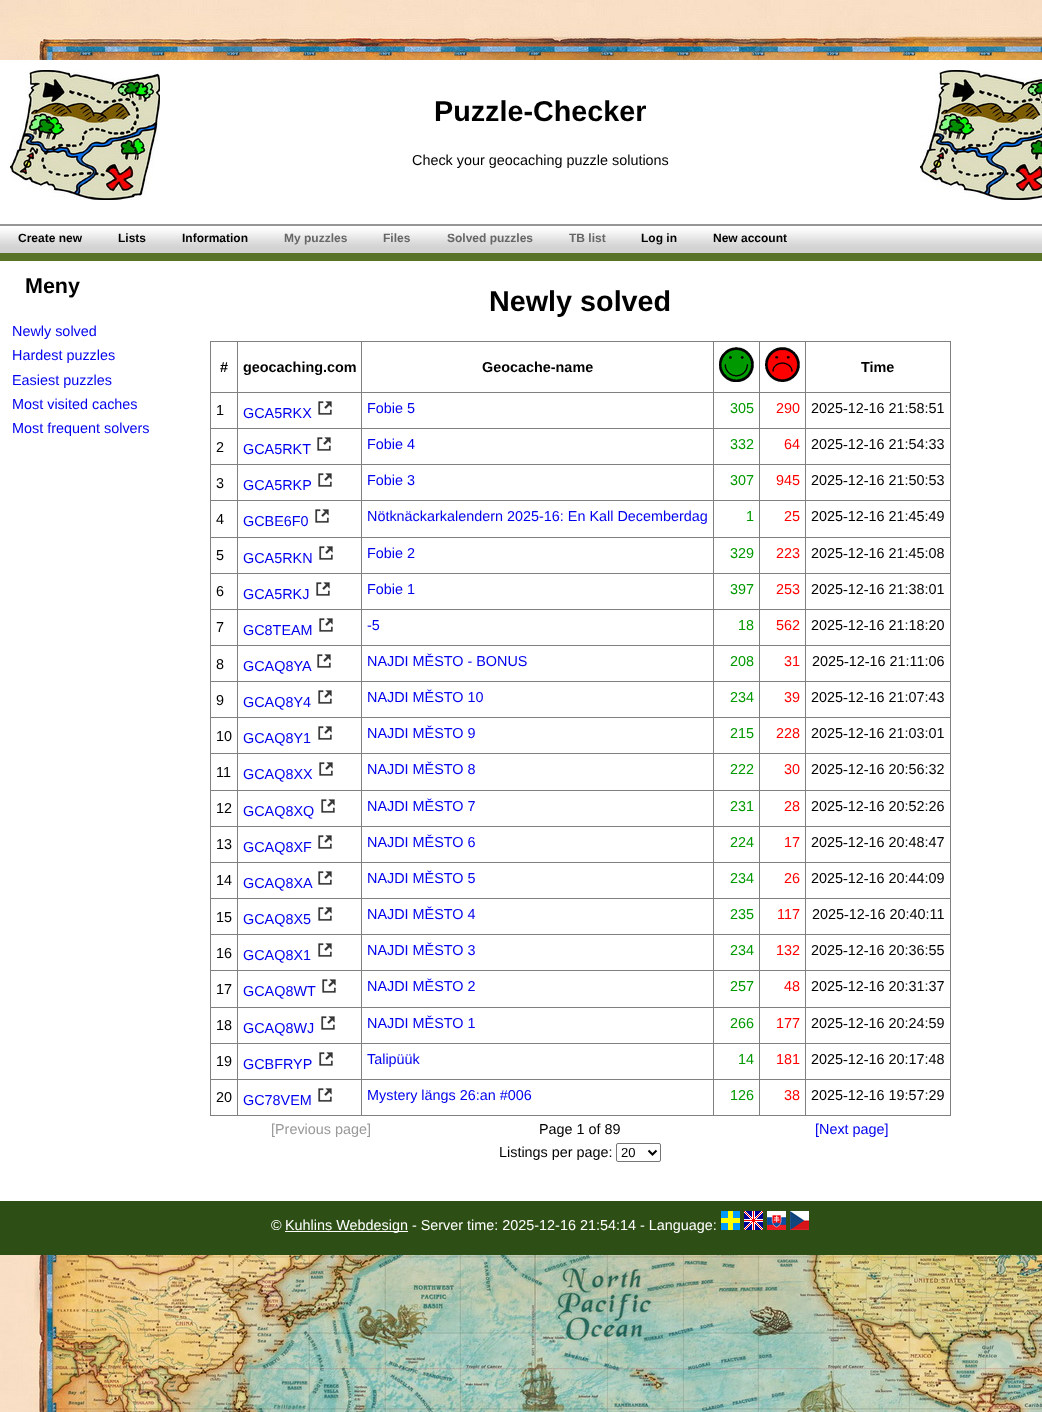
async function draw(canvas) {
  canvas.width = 1042;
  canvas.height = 1412;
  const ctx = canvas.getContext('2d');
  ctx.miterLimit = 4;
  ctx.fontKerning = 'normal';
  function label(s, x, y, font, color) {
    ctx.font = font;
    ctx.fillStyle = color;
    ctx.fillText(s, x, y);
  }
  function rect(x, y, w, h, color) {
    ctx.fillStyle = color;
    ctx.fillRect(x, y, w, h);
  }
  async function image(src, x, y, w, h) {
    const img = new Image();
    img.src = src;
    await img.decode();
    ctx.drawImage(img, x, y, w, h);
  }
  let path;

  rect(0, 0, 1042, 1412, '#fff');
  await image('assets/img1.png', 0, 0, 1042, 1412);
  rect(0, 60, 1042, 1141, '#fff');
  await image('assets/img2.png', 10, 70, 150, 130);
  label('Puzzle-Checker', 434, 121, 'bold 28.75px Liberation Sans', '#000');
  label('Check your geocaching puzzle solutions', 412, 165, '14.4px Liberation Sans', '#000');
  await image('assets/img3.png', 920, 70, 122, 130);
  await image('assets/img4.png', 0, 224, 1042, 37);
  label('Create new', 18, 242, 'bold 12px Liberation Sans', '#000');
  label('Lists', 118, 242, 'bold 12px Liberation Sans', '#000');
  label('Information', 182, 242, 'bold 12px Liberation Sans', '#000');
  label('My puzzles', 284, 242, 'bold 12px Liberation Sans', '#666');
  label('Files', 383, 242, 'bold 12px Liberation Sans', '#666');
  label('Solved puzzles', 447, 242, 'bold 12px Liberation Sans', '#666');
  label('TB list', 569, 242, 'bold 12px Liberation Sans', '#666');
  label('Log in', 641, 242, 'bold 12px Liberation Sans', '#000');
  label('New account', 713, 242, 'bold 12px Liberation Sans', '#000');
  label('Meny', 25, 293, 'bold 21.5px Liberation Sans', '#000');
  label('Newly solved', 12, 336, '14.4px Liberation Sans', '#00e');
  label('Hardest puzzles', 12, 360, '14.4px Liberation Sans', '#00e');
  label('Easiest puzzles', 12, 385, '14.4px Liberation Sans', '#00e');
  label('Most visited caches', 12, 409, '14.4px Liberation Sans', '#00e');
  label('Most frequent solvers', 12, 433, '14.4px Liberation Sans', '#00e');
  label('Newly solved', 489, 311, 'bold 28.75px Liberation Sans', '#000');
  rect(210, 341, 741, 1, '#808080');
  rect(950, 341, 1, 775, '#808080');
  rect(210, 1115, 741, 1, '#808080');
  rect(210, 341, 1, 775, '#808080');
  label('#', 220, 372, 'bold 14.4px Liberation Sans', '#000');
  rect(805, 392, 146, 1, '#808080');
  rect(805, 428, 146, 1, '#808080');
  rect(805, 464, 146, 1, '#808080');
  rect(805, 500, 146, 1, '#808080');
  rect(805, 537, 146, 1, '#808080');
  rect(805, 573, 146, 1, '#808080');
  rect(805, 609, 146, 1, '#808080');
  rect(805, 645, 146, 1, '#808080');
  rect(805, 681, 146, 1, '#808080');
  rect(805, 717, 146, 1, '#808080');
  rect(805, 753, 146, 1, '#808080');
  rect(805, 790, 146, 1, '#808080');
  rect(805, 826, 146, 1, '#808080');
  rect(805, 862, 146, 1, '#808080');
  rect(805, 898, 146, 1, '#808080');
  rect(805, 934, 146, 1, '#808080');
  rect(805, 970, 146, 1, '#808080');
  rect(805, 1007, 146, 1, '#808080');
  rect(805, 1043, 146, 1, '#808080');
  rect(805, 1079, 146, 1, '#808080');
  rect(805, 1079, 1, 37, '#808080');
  rect(759, 1079, 47, 1, '#808080');
  rect(805, 1043, 1, 37, '#808080');
  rect(759, 1043, 47, 1, '#808080');
  rect(805, 1007, 1, 37, '#808080');
  rect(759, 1007, 47, 1, '#808080');
  rect(805, 970, 1, 38, '#808080');
  rect(759, 970, 47, 1, '#808080');
  rect(805, 934, 1, 37, '#808080');
  rect(759, 934, 47, 1, '#808080');
  rect(805, 898, 1, 37, '#808080');
  rect(759, 898, 47, 1, '#808080');
  rect(805, 862, 1, 37, '#808080');
  rect(759, 862, 47, 1, '#808080');
  rect(805, 826, 1, 37, '#808080');
  rect(759, 826, 47, 1, '#808080');
  rect(805, 790, 1, 37, '#808080');
  rect(759, 790, 47, 1, '#808080');
  rect(805, 753, 1, 38, '#808080');
  rect(759, 753, 47, 1, '#808080');
  rect(805, 717, 1, 37, '#808080');
  rect(759, 717, 47, 1, '#808080');
  rect(805, 681, 1, 37, '#808080');
  rect(759, 681, 47, 1, '#808080');
  rect(805, 645, 1, 37, '#808080');
  rect(759, 645, 47, 1, '#808080');
  rect(805, 609, 1, 37, '#808080');
  rect(759, 609, 47, 1, '#808080');
  rect(805, 573, 1, 37, '#808080');
  rect(759, 573, 47, 1, '#808080');
  rect(805, 537, 1, 37, '#808080');
  rect(759, 537, 47, 1, '#808080');
  rect(805, 500, 1, 38, '#808080');
  rect(759, 500, 47, 1, '#808080');
  rect(805, 464, 1, 37, '#808080');
  rect(759, 464, 47, 1, '#808080');
  rect(805, 428, 1, 37, '#808080');
  rect(759, 428, 47, 1, '#808080');
  rect(805, 392, 1, 37, '#808080');
  rect(759, 392, 47, 1, '#808080');
  rect(759, 1079, 1, 37, '#808080');
  rect(713, 1079, 47, 1, '#808080');
  rect(759, 1043, 1, 37, '#808080');
  rect(713, 1043, 47, 1, '#808080');
  rect(759, 1007, 1, 37, '#808080');
  rect(713, 1007, 47, 1, '#808080');
  rect(759, 970, 1, 38, '#808080');
  rect(713, 970, 47, 1, '#808080');
  rect(759, 934, 1, 37, '#808080');
  rect(713, 934, 47, 1, '#808080');
  rect(759, 898, 1, 37, '#808080');
  rect(713, 898, 47, 1, '#808080');
  rect(759, 862, 1, 37, '#808080');
  rect(713, 862, 47, 1, '#808080');
  rect(759, 826, 1, 37, '#808080');
  rect(713, 826, 47, 1, '#808080');
  rect(759, 790, 1, 37, '#808080');
  rect(713, 790, 47, 1, '#808080');
  rect(759, 753, 1, 38, '#808080');
  rect(713, 753, 47, 1, '#808080');
  rect(759, 717, 1, 37, '#808080');
  rect(713, 717, 47, 1, '#808080');
  rect(759, 681, 1, 37, '#808080');
  rect(713, 681, 47, 1, '#808080');
  rect(759, 645, 1, 37, '#808080');
  rect(713, 645, 47, 1, '#808080');
  rect(759, 609, 1, 37, '#808080');
  rect(713, 609, 47, 1, '#808080');
  rect(759, 573, 1, 37, '#808080');
  rect(713, 573, 47, 1, '#808080');
  rect(759, 537, 1, 37, '#808080');
  rect(713, 537, 47, 1, '#808080');
  rect(759, 500, 1, 38, '#808080');
  rect(713, 500, 47, 1, '#808080');
  rect(759, 464, 1, 37, '#808080');
  rect(713, 464, 47, 1, '#808080');
  rect(759, 428, 1, 37, '#808080');
  rect(713, 428, 47, 1, '#808080');
  rect(759, 392, 1, 37, '#808080');
  rect(713, 392, 47, 1, '#808080');
  rect(713, 1079, 1, 37, '#808080');
  rect(361, 1079, 353, 1, '#808080');
  rect(713, 1043, 1, 37, '#808080');
  rect(361, 1043, 353, 1, '#808080');
  rect(713, 1007, 1, 37, '#808080');
  rect(361, 1007, 353, 1, '#808080');
  rect(713, 970, 1, 38, '#808080');
  rect(361, 970, 353, 1, '#808080');
  rect(713, 934, 1, 37, '#808080');
  rect(361, 934, 353, 1, '#808080');
  rect(713, 898, 1, 37, '#808080');
  rect(361, 898, 353, 1, '#808080');
  rect(713, 862, 1, 37, '#808080');
  rect(361, 862, 353, 1, '#808080');
  rect(713, 826, 1, 37, '#808080');
  rect(361, 826, 353, 1, '#808080');
  rect(713, 790, 1, 37, '#808080');
  rect(361, 790, 353, 1, '#808080');
  rect(713, 753, 1, 38, '#808080');
  rect(361, 753, 353, 1, '#808080');
  rect(713, 717, 1, 37, '#808080');
  rect(361, 717, 353, 1, '#808080');
  rect(713, 681, 1, 37, '#808080');
  rect(361, 681, 353, 1, '#808080');
  rect(713, 645, 1, 37, '#808080');
  rect(361, 645, 353, 1, '#808080');
  rect(713, 609, 1, 37, '#808080');
  rect(361, 609, 353, 1, '#808080');
  rect(713, 573, 1, 37, '#808080');
  rect(361, 573, 353, 1, '#808080');
  rect(713, 537, 1, 37, '#808080');
  rect(361, 537, 353, 1, '#808080');
  rect(713, 500, 1, 38, '#808080');
  rect(361, 500, 353, 1, '#808080');
  rect(713, 464, 1, 37, '#808080');
  rect(361, 464, 353, 1, '#808080');
  rect(713, 428, 1, 37, '#808080');
  rect(361, 428, 353, 1, '#808080');
  rect(713, 392, 1, 37, '#808080');
  rect(361, 392, 353, 1, '#808080');
  rect(361, 1079, 1, 37, '#808080');
  rect(237, 1079, 125, 1, '#808080');
  rect(361, 1043, 1, 37, '#808080');
  rect(237, 1043, 125, 1, '#808080');
  rect(361, 1007, 1, 37, '#808080');
  rect(237, 1007, 125, 1, '#808080');
  rect(361, 970, 1, 38, '#808080');
  rect(237, 970, 125, 1, '#808080');
  rect(361, 934, 1, 37, '#808080');
  rect(237, 934, 125, 1, '#808080');
  rect(361, 898, 1, 37, '#808080');
  rect(237, 898, 125, 1, '#808080');
  rect(361, 862, 1, 37, '#808080');
  rect(237, 862, 125, 1, '#808080');
  rect(361, 826, 1, 37, '#808080');
  rect(237, 826, 125, 1, '#808080');
  rect(361, 790, 1, 37, '#808080');
  rect(237, 790, 125, 1, '#808080');
  rect(361, 753, 1, 38, '#808080');
  rect(237, 753, 125, 1, '#808080');
  rect(361, 717, 1, 37, '#808080');
  rect(237, 717, 125, 1, '#808080');
  rect(361, 681, 1, 37, '#808080');
  rect(237, 681, 125, 1, '#808080');
  rect(361, 645, 1, 37, '#808080');
  rect(237, 645, 125, 1, '#808080');
  rect(361, 609, 1, 37, '#808080');
  rect(237, 609, 125, 1, '#808080');
  rect(361, 573, 1, 37, '#808080');
  rect(237, 573, 125, 1, '#808080');
  rect(361, 537, 1, 37, '#808080');
  rect(237, 537, 125, 1, '#808080');
  rect(361, 500, 1, 38, '#808080');
  rect(237, 500, 125, 1, '#808080');
  rect(361, 464, 1, 37, '#808080');
  rect(237, 464, 125, 1, '#808080');
  rect(361, 428, 1, 37, '#808080');
  rect(237, 428, 125, 1, '#808080');
  rect(361, 392, 1, 37, '#808080');
  rect(237, 392, 125, 1, '#808080');
  rect(237, 1079, 1, 37, '#808080');
  rect(210, 1079, 28, 1, '#808080');
  rect(237, 1043, 1, 37, '#808080');
  rect(210, 1043, 28, 1, '#808080');
  rect(237, 1007, 1, 37, '#808080');
  rect(210, 1007, 28, 1, '#808080');
  rect(237, 970, 1, 38, '#808080');
  rect(210, 970, 28, 1, '#808080');
  rect(237, 934, 1, 37, '#808080');
  rect(210, 934, 28, 1, '#808080');
  rect(237, 898, 1, 37, '#808080');
  rect(210, 898, 28, 1, '#808080');
  rect(237, 862, 1, 37, '#808080');
  rect(210, 862, 28, 1, '#808080');
  rect(237, 826, 1, 37, '#808080');
  rect(210, 826, 28, 1, '#808080');
  rect(237, 790, 1, 37, '#808080');
  rect(210, 790, 28, 1, '#808080');
  rect(237, 753, 1, 38, '#808080');
  rect(210, 753, 28, 1, '#808080');
  rect(237, 717, 1, 37, '#808080');
  rect(210, 717, 28, 1, '#808080');
  rect(237, 681, 1, 37, '#808080');
  rect(210, 681, 28, 1, '#808080');
  rect(237, 645, 1, 37, '#808080');
  rect(210, 645, 28, 1, '#808080');
  rect(237, 609, 1, 37, '#808080');
  rect(210, 609, 28, 1, '#808080');
  rect(237, 573, 1, 37, '#808080');
  rect(210, 573, 28, 1, '#808080');
  rect(237, 537, 1, 37, '#808080');
  rect(210, 537, 28, 1, '#808080');
  rect(237, 500, 1, 38, '#808080');
  rect(210, 500, 28, 1, '#808080');
  rect(237, 464, 1, 37, '#808080');
  rect(210, 464, 28, 1, '#808080');
  rect(237, 428, 1, 37, '#808080');
  rect(210, 428, 28, 1, '#808080');
  rect(237, 392, 1, 37, '#808080');
  rect(210, 392, 28, 1, '#808080');
  rect(237, 341, 1, 52, '#808080');
  label('geocaching.com', 243, 372, 'bold 14.4px Liberation Sans', '#000');
  rect(361, 341, 1, 52, '#808080');
  label('Geocache-name', 482, 372, 'bold 14.4px Liberation Sans', '#000');
  rect(713, 341, 1, 52, '#808080');
  await image('assets/img5.png', 719, 347, 35, 35);
  rect(759, 341, 1, 52, '#808080');
  await image('assets/img6.png', 765, 347, 35, 35);
  rect(805, 341, 1, 52, '#808080');
  label('Time', 861, 372, 'bold 14.4px Liberation Sans', '#000');
  label('1', 216, 415, '14.4px Liberation Sans', '#000');
  label('GCA5RKX', 243, 418, '14.4px Liberation Sans', '#00e');
  await image('assets/img7.png', 318, 401, 14, 14);
  label('Fobie 5', 367, 413, '14.4px Liberation Sans', '#00e');
  label('305', 730, 413, '14.4px Liberation Sans', '#090');
  label('290', 776, 413, '14.4px Liberation Sans', '#f00');
  label('2025‑12‑16 21:58:51', 811, 413, '14.4px Liberation Sans', '#000');
  label('2', 216, 452, '14.4px Liberation Sans', '#000');
  label('GCA5RKT', 243, 454, '14.4px Liberation Sans', '#00e');
  await image('assets/img7.png', 317, 437, 14, 14);
  label('Fobie 4', 367, 449, '14.4px Liberation Sans', '#00e');
  label('332', 730, 449, '14.4px Liberation Sans', '#090');
  label('64', 784, 449, '14.4px Liberation Sans', '#f00');
  label('2025‑12‑16 21:54:33', 811, 449, '14.4px Liberation Sans', '#000');
  label('3', 216, 488, '14.4px Liberation Sans', '#000');
  label('GCA5RKP', 243, 490, '14.4px Liberation Sans', '#00e');
  await image('assets/img7.png', 318, 473, 14, 14);
  label('Fobie 3', 367, 485, '14.4px Liberation Sans', '#00e');
  label('307', 730, 485, '14.4px Liberation Sans', '#090');
  label('945', 776, 485, '14.4px Liberation Sans', '#f00');
  label('2025‑12‑16 21:50:53', 811, 485, '14.4px Liberation Sans', '#000');
  label('4', 216, 524, '14.4px Liberation Sans', '#000');
  label('GCBE6F0', 243, 526, '14.4px Liberation Sans', '#00e');
  await image('assets/img7.png', 315, 509, 14, 14);
  label('Nötknäckarkalendern 2025-16: En Kall Decemberdag', 367, 521, '14.4px Liberation Sans', '#00e');
  label('1', 746, 521, '14.4px Liberation Sans', '#090');
  label('25', 784, 521, '14.4px Liberation Sans', '#f00');
  label('2025‑12‑16 21:45:49', 811, 521, '14.4px Liberation Sans', '#000');
  label('5', 216, 560, '14.4px Liberation Sans', '#000');
  label('GCA5RKN', 243, 563, '14.4px Liberation Sans', '#00e');
  await image('assets/img7.png', 319, 546, 14, 14);
  label('Fobie 2', 367, 558, '14.4px Liberation Sans', '#00e');
  label('329', 730, 558, '14.4px Liberation Sans', '#090');
  label('223', 776, 558, '14.4px Liberation Sans', '#f00');
  label('2025‑12‑16 21:45:08', 811, 558, '14.4px Liberation Sans', '#000');
  label('6', 216, 596, '14.4px Liberation Sans', '#000');
  label('GCA5RKJ', 243, 599, '14.4px Liberation Sans', '#00e');
  await image('assets/img7.png', 316, 582, 14, 14);
  label('Fobie 1', 367, 594, '14.4px Liberation Sans', '#00e');
  label('397', 730, 594, '14.4px Liberation Sans', '#090');
  label('253', 776, 594, '14.4px Liberation Sans', '#f00');
  label('2025‑12‑16 21:38:01', 811, 594, '14.4px Liberation Sans', '#000');
  label('7', 216, 632, '14.4px Liberation Sans', '#000');
  label('GC8TEAM', 243, 635, '14.4px Liberation Sans', '#00e');
  await image('assets/img7.png', 319, 618, 14, 14);
  label('-5', 367, 630, '14.4px Liberation Sans', '#00e');
  label('18', 738, 630, '14.4px Liberation Sans', '#090');
  label('562', 776, 630, '14.4px Liberation Sans', '#f00');
  label('2025‑12‑16 21:18:20', 811, 630, '14.4px Liberation Sans', '#000');
  label('8', 216, 669, '14.4px Liberation Sans', '#000');
  label('GCAQ8YA', 243, 671, '14.4px Liberation Sans', '#00e');
  await image('assets/img7.png', 317, 654, 14, 14);
  label('NAJDI MĚSTO - BONUS', 367, 666, '14.4px Liberation Sans', '#00e');
  label('208', 730, 666, '14.4px Liberation Sans', '#090');
  label('31', 784, 666, '14.4px Liberation Sans', '#f00');
  label('2025‑12‑16 21:11:06', 812, 666, '14.4px Liberation Sans', '#000');
  label('9', 216, 705, '14.4px Liberation Sans', '#000');
  label('GCAQ8Y4', 243, 707, '14.4px Liberation Sans', '#00e');
  await image('assets/img7.png', 318, 690, 14, 14);
  label('NAJDI MĚSTO 10', 367, 702, '14.4px Liberation Sans', '#00e');
  label('234', 730, 702, '14.4px Liberation Sans', '#090');
  label('39', 784, 702, '14.4px Liberation Sans', '#f00');
  label('2025‑12‑16 21:07:43', 811, 702, '14.4px Liberation Sans', '#000');
  label('10', 216, 741, '14.4px Liberation Sans', '#000');
  label('GCAQ8Y1', 243, 743, '14.4px Liberation Sans', '#00e');
  await image('assets/img7.png', 318, 726, 14, 14);
  label('NAJDI MĚSTO 9', 367, 738, '14.4px Liberation Sans', '#00e');
  label('215', 730, 738, '14.4px Liberation Sans', '#090');
  label('228', 776, 738, '14.4px Liberation Sans', '#f00');
  label('2025‑12‑16 21:03:01', 811, 738, '14.4px Liberation Sans', '#000');
  label('11', 216, 777, '14.4px Liberation Sans', '#000');
  label('GCAQ8XX', 243, 779, '14.4px Liberation Sans', '#00e');
  await image('assets/img7.png', 319, 762, 14, 14);
  label('NAJDI MĚSTO 8', 367, 774, '14.4px Liberation Sans', '#00e');
  label('222', 730, 774, '14.4px Liberation Sans', '#090');
  label('30', 784, 774, '14.4px Liberation Sans', '#f00');
  label('2025‑12‑16 20:56:32', 811, 774, '14.4px Liberation Sans', '#000');
  label('12', 216, 813, '14.4px Liberation Sans', '#000');
  label('GCAQ8XQ', 243, 816, '14.4px Liberation Sans', '#00e');
  await image('assets/img7.png', 321, 799, 14, 14);
  label('NAJDI MĚSTO 7', 367, 811, '14.4px Liberation Sans', '#00e');
  label('231', 730, 811, '14.4px Liberation Sans', '#090');
  label('28', 784, 811, '14.4px Liberation Sans', '#f00');
  label('2025‑12‑16 20:52:26', 811, 811, '14.4px Liberation Sans', '#000');
  label('13', 216, 849, '14.4px Liberation Sans', '#000');
  label('GCAQ8XF', 243, 852, '14.4px Liberation Sans', '#00e');
  await image('assets/img7.png', 318, 835, 14, 14);
  label('NAJDI MĚSTO 6', 367, 847, '14.4px Liberation Sans', '#00e');
  label('224', 730, 847, '14.4px Liberation Sans', '#090');
  label('17', 784, 847, '14.4px Liberation Sans', '#f00');
  label('2025‑12‑16 20:48:47', 811, 847, '14.4px Liberation Sans', '#000');
  label('14', 216, 885, '14.4px Liberation Sans', '#000');
  label('GCAQ8XA', 243, 888, '14.4px Liberation Sans', '#00e');
  await image('assets/img7.png', 318, 871, 14, 14);
  label('NAJDI MĚSTO 5', 367, 883, '14.4px Liberation Sans', '#00e');
  label('234', 730, 883, '14.4px Liberation Sans', '#090');
  label('26', 784, 883, '14.4px Liberation Sans', '#f00');
  label('2025‑12‑16 20:44:09', 811, 883, '14.4px Liberation Sans', '#000');
  label('15', 216, 922, '14.4px Liberation Sans', '#000');
  label('GCAQ8X5', 243, 924, '14.4px Liberation Sans', '#00e');
  await image('assets/img7.png', 318, 907, 14, 14);
  label('NAJDI MĚSTO 4', 367, 919, '14.4px Liberation Sans', '#00e');
  label('235', 730, 919, '14.4px Liberation Sans', '#090');
  label('117', 777, 919, '14.4px Liberation Sans', '#f00');
  label('2025‑12‑16 20:40:11', 812, 919, '14.4px Liberation Sans', '#000');
  label('16', 216, 958, '14.4px Liberation Sans', '#000');
  label('GCAQ8X1', 243, 960, '14.4px Liberation Sans', '#00e');
  await image('assets/img7.png', 318, 943, 14, 14);
  label('NAJDI MĚSTO 3', 367, 955, '14.4px Liberation Sans', '#00e');
  label('234', 730, 955, '14.4px Liberation Sans', '#090');
  label('132', 776, 955, '14.4px Liberation Sans', '#f00');
  label('2025‑12‑16 20:36:55', 811, 955, '14.4px Liberation Sans', '#000');
  label('17', 216, 994, '14.4px Liberation Sans', '#000');
  label('GCAQ8WT', 243, 996, '14.4px Liberation Sans', '#00e');
  await image('assets/img7.png', 322, 979, 14, 14);
  label('NAJDI MĚSTO 2', 367, 991, '14.4px Liberation Sans', '#00e');
  label('257', 730, 991, '14.4px Liberation Sans', '#090');
  label('48', 784, 991, '14.4px Liberation Sans', '#f00');
  label('2025‑12‑16 20:31:37', 811, 991, '14.4px Liberation Sans', '#000');
  label('18', 216, 1030, '14.4px Liberation Sans', '#000');
  label('GCAQ8WJ', 243, 1033, '14.4px Liberation Sans', '#00e');
  await image('assets/img7.png', 321, 1016, 14, 14);
  label('NAJDI MĚSTO 1', 367, 1028, '14.4px Liberation Sans', '#00e');
  label('266', 730, 1028, '14.4px Liberation Sans', '#090');
  label('177', 776, 1028, '14.4px Liberation Sans', '#f00');
  label('2025‑12‑16 20:24:59', 811, 1028, '14.4px Liberation Sans', '#000');
  label('19', 216, 1066, '14.4px Liberation Sans', '#000');
  label('GCBFRYP', 243, 1069, '14.4px Liberation Sans', '#00e');
  await image('assets/img7.png', 319, 1052, 14, 14);
  label('Talipüük', 367, 1064, '14.4px Liberation Sans', '#00e');
  label('14', 738, 1064, '14.4px Liberation Sans', '#090');
  label('181', 776, 1064, '14.4px Liberation Sans', '#f00');
  label('2025‑12‑16 20:17:48', 811, 1064, '14.4px Liberation Sans', '#000');
  label('20', 216, 1102, '14.4px Liberation Sans', '#000');
  label('GC78VEM', 243, 1105, '14.4px Liberation Sans', '#00e');
  await image('assets/img7.png', 318, 1088, 14, 14);
  label('Mystery längs 26:an #006', 367, 1100, '14.4px Liberation Sans', '#00e');
  label('126', 730, 1100, '14.4px Liberation Sans', '#090');
  label('38', 784, 1100, '14.4px Liberation Sans', '#f00');
  label('2025‑12‑16 19:57:29', 811, 1100, '14.4px Liberation Sans', '#000');
  label('[Previous page]', 271, 1134, '14.4px Liberation Sans', '#999');
  label('Page 1 of 89', 539, 1134, '14.4px Liberation Sans', '#000');
  label('[Next page]', 815, 1134, '14.4px Liberation Sans', '#00e');
  label('Listings per page:', 499, 1157, '14.4px Liberation Sans', '#000');
  ctx.beginPath();
  ctx.roundRect(616.5, 1143.5, 44, 18, 1.5);
  ctx.strokeStyle = '#767676';
  ctx.stroke();
  path = new Path2D('M648.5 1150.5L652.5 1154.5L656.5 1150.5');
  ctx.strokeStyle = '#000';
  ctx.lineWidth = 2;
  ctx.stroke(path);
  label('20', 621, 1157, '13px Liberation Sans', '#000');
  rect(0, 1201, 1042, 54, '#2d4f15');
  label('©', 271, 1230, '14.4px Liberation Sans', '#fff');
  rect(285, 1231, 123, 1, '#fff');
  label('Kuhlins Webdesign - Server time: 2025-12-16 21:54:14 - Language:', 285, 1230, '14.4px Liberation Sans', '#fff');
  await image('assets/img8.png', 721, 1211, 19, 19);
  await image('assets/img9.png', 744, 1211, 19, 19);
  await image('assets/img10.png', 767, 1211, 19, 19);
  await image('assets/img11.png', 790, 1211, 19, 19);
}

draw(document.querySelector('canvas'));
